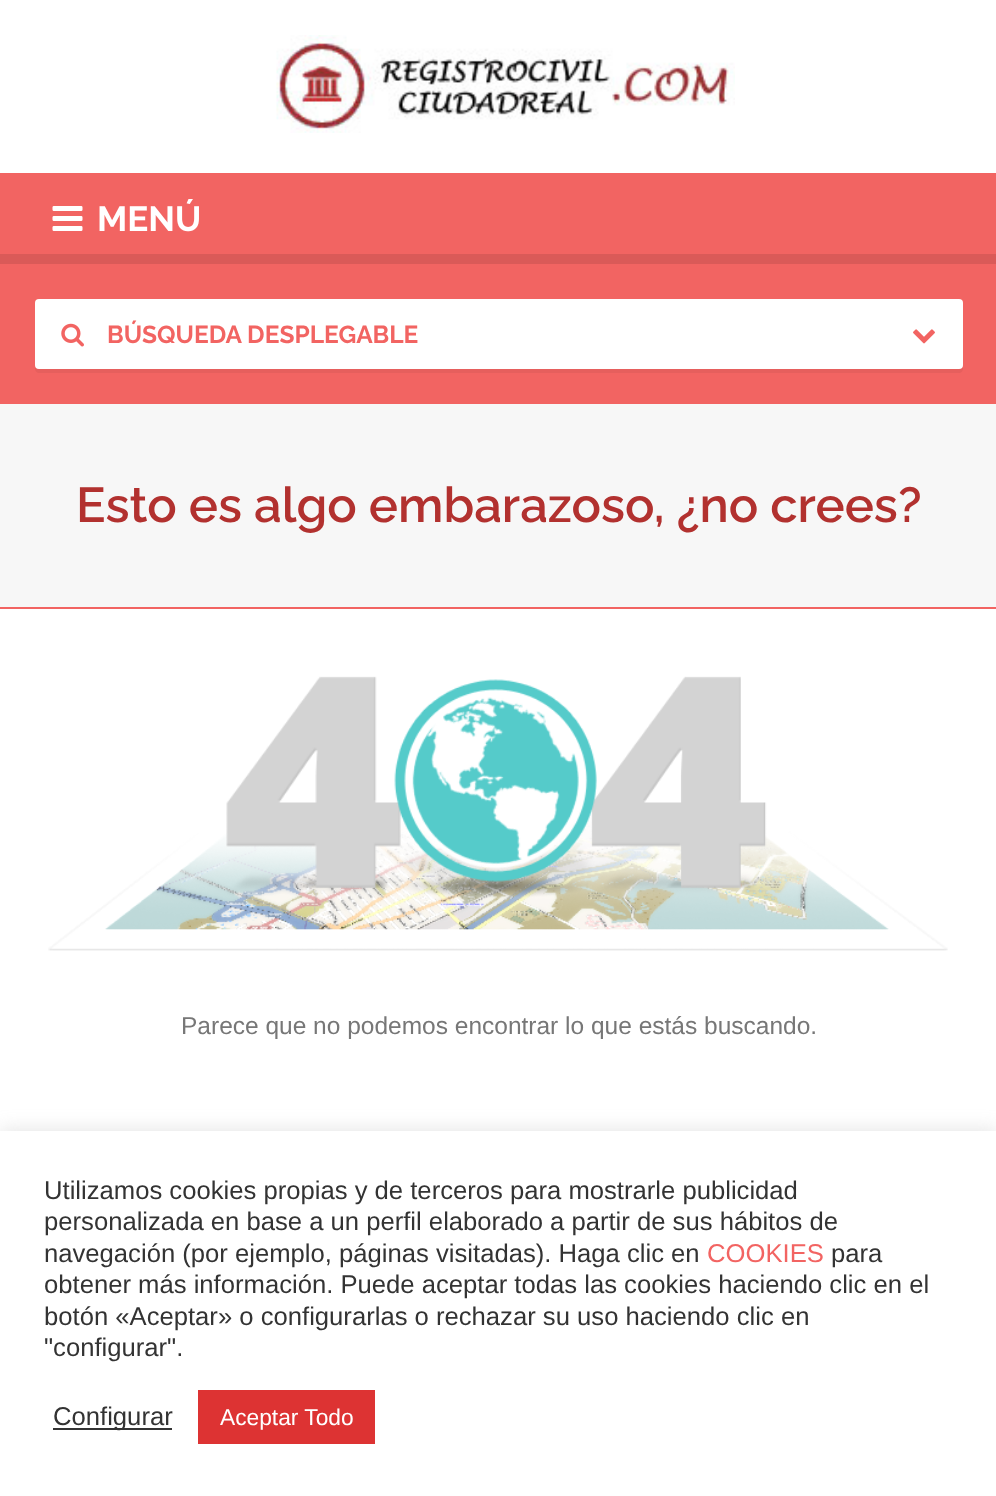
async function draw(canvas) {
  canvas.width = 996;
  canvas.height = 1496;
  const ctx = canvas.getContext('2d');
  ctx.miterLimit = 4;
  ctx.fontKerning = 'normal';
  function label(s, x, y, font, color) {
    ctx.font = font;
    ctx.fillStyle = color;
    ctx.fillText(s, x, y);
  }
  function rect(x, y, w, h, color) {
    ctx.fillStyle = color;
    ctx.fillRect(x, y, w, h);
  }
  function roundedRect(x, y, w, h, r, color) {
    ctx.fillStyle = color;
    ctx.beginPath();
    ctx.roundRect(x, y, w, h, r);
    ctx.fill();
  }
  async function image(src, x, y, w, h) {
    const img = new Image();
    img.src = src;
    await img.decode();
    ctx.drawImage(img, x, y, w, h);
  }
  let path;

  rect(0, 0, 996, 1496, '#fff');
  await image('assets/img1.png', 276, 35, 459, 98);
  rect(0, 173, 996, 81, '#f26462');
  rect(0, 254, 996, 10, '#da5a58');
  await image('assets/img2.png', 52, 206, 31, 25);
  label('MENÚ', 97, 231, 'bold 35px Raleway', '#fff');
  rect(0, 264, 996, 140, '#f26462');
  ctx.fillStyle = '#e65f5d';
  path = new Path2D('M35 366V369C35 371 37 373 39 373H959C961 373 963 371 963 369V307L962 305V366C962 368 961 369 959 369H38C37 369 35 368 35 366Z');
  ctx.fill(path);
  roundedRect(35, 299, 928, 70, 4, '#fff');
  await image('assets/img3.png', 61, 323, 23, 24);
  label('BÚSQUEDA DESPLEGABLE', 107, 343, 'bold 24.5px Raleway', '#f26462');
  await image('assets/img4.png', 913, 329, 22, 15);
  rect(0, 404, 996, 203, '#f7f7f7');
  rect(0, 607, 996, 2, '#f26462');
  label('Esto es algo embarazoso, ¿no crees?', 76, 522, '600 49px Raleway', '#b2312f');
  await image('assets/img5.png', 48, 676, 900, 275);
  label('Parece que no podemos encontrar lo que estás buscando.', 181, 1034, '24.5px Liberation Sans', '#777');
  ctx.fillStyle = '#acabab4d';
  ctx.filter = 'blur(9px)';
  ctx.beginPath();
  ctx.rect(0, 1129, 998, 366);
  ctx.fill();
  ctx.filter = 'none';
  rect(0, 1131, 996, 365, '#fff');
  label('Utilizamos cookies propias y de terceros para mostrarle publicidad', 44, 1199, '25.65px Liberation Sans', '#333');
  label('personalizada en base a un perfil elaborado a partir de sus hábitos de', 44, 1230, '25.65px Liberation Sans', '#333');
  label('navegación (por ejemplo, páginas visitadas). Haga clic en', 44, 1262, '25.65px Liberation Sans', '#333');
  label('COOKIES', 707, 1262, '25.65px Liberation Sans', '#f26462');
  label('para', 831, 1262, '25.65px Liberation Sans', '#333');
  label('obtener más información. Puede aceptar todas las cookies haciendo clic en el', 44, 1293, '25.65px Liberation Sans', '#333');
  label('botón «Aceptar» o configurarlas o rechazar su uso haciendo clic en', 44, 1325, '25.65px Liberation Sans', '#333');
  label('"configurar".', 44, 1356, '25.65px Liberation Sans', '#333');
  rect(53, 1428, 119, 2, '#333');
  label('Configurar', 53, 1425, '25.65px Liberation Sans', '#333');
  rect(198, 1390, 177, 54, '#d33');
  label('Aceptar Todo', 220, 1425, '22.75px Liberation Sans', '#fff');
}

draw(document.querySelector('canvas'));
